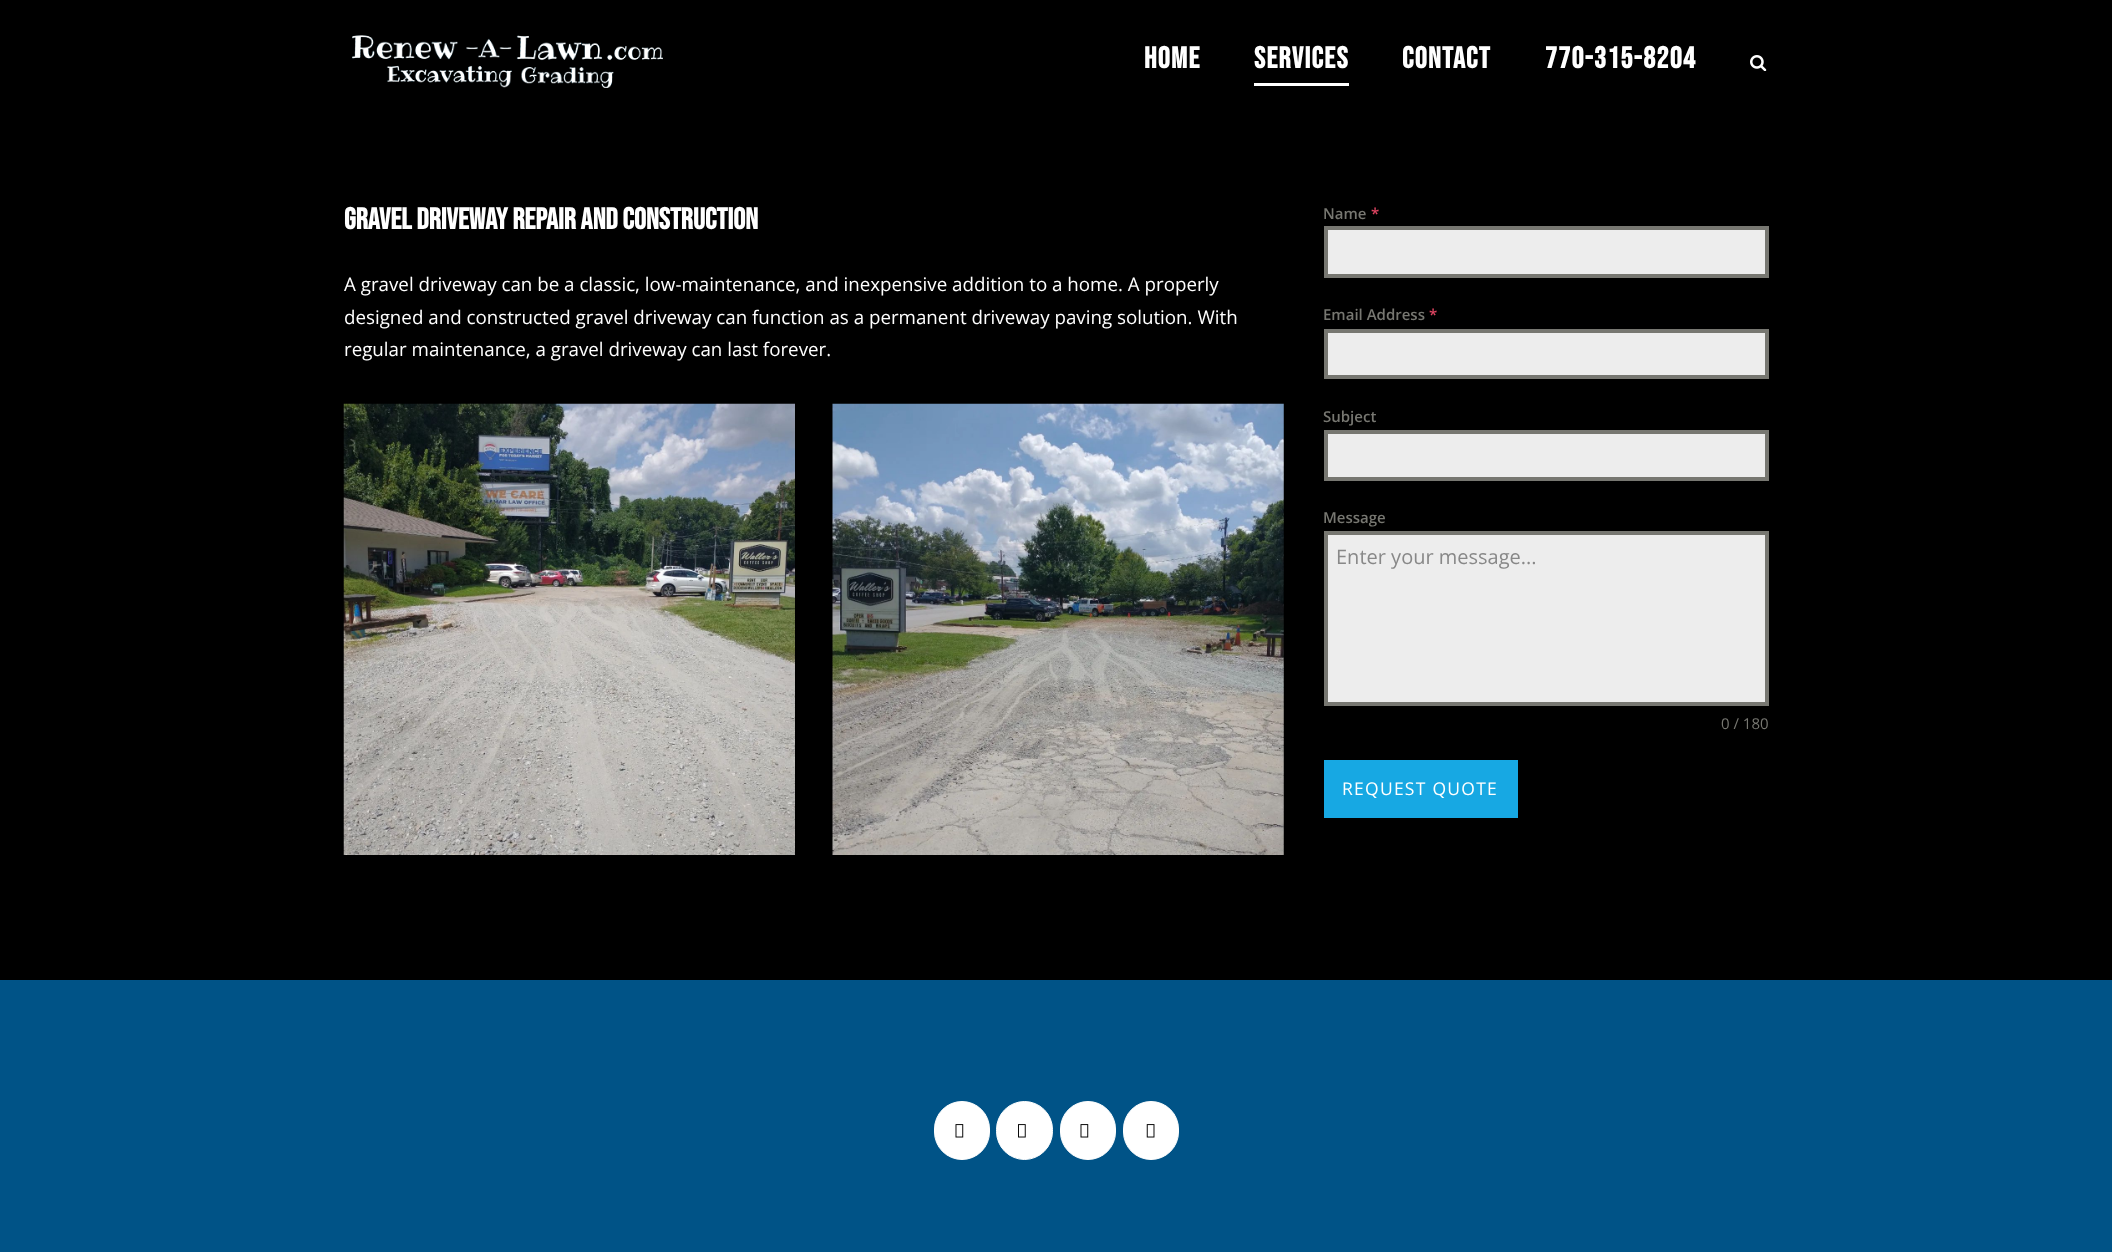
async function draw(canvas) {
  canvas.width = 2112;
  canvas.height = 1252;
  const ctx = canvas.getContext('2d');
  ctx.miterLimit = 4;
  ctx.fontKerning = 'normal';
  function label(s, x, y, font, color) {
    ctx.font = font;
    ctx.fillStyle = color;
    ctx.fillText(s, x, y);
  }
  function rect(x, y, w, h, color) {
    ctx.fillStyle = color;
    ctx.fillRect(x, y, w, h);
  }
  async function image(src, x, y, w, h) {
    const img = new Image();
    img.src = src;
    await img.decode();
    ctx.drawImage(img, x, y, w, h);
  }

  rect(0, 0, 2112, 1252, '#000');
  await image('assets/img1.png', 352, 35, 311, 53);
  ctx.letterSpacing = '1.25px';
  label('HOME', 1144, 68, 'bold 30px Bebas Neue', '#fff');
  rect(1254, 83, 95, 3, '#fff');
  label('SERVICES', 1254, 68, 'bold 30px Bebas Neue', '#fff');
  label('CONTACT', 1402, 68, 'bold 30px Bebas Neue', '#fff');
  label('770-315-8204', 1545, 68, 'bold 30px Bebas Neue', '#fff');
  await image('assets/img2.png', 1750, 55, 17, 16);
  ctx.letterSpacing = '0px';
  label('Gravel Driveway Repair and Construction', 344, 229, 'bold 30px Bebas Neue', '#fff');
  label('A gravel driveway can be a classic, low-maintenance, and inexpensive addition to a home. A properly', 344, 291, '18.75px Open Sans', '#fff');
  label('designed and constructed gravel driveway can function as a permanent driveway paving solution. With', 344, 324, '18.75px Open Sans', '#fff');
  label('regular maintenance, a gravel driveway can last forever.', 344, 356, '18.75px Open Sans', '#fff');
  await image('assets/img3.png', 343, 403, 452, 452);
  await image('assets/img4.png', 832, 403, 452, 452);
  label('Name', 1323, 219, '600 15px Open Sans', '#777771');
  label('*', 1371, 219, '600 15px Open Sans', '#e04562');
  ctx.fillStyle = '#ededed';
  ctx.beginPath();
  ctx.rect(1326, 228, 441, 48);
  ctx.fill();
  ctx.strokeStyle = '#777771';
  ctx.lineWidth = 4;
  ctx.stroke();
  label('Email Address', 1323, 320, '600 15px Open Sans', '#777771');
  label('*', 1429, 320, '600 15px Open Sans', '#e04562');
  ctx.fillStyle = '#ededed';
  ctx.beginPath();
  ctx.rect(1326, 331, 441, 46);
  ctx.fill();
  ctx.stroke();
  label('Subject', 1323, 422, '600 15px Open Sans', '#777771');
  ctx.fillStyle = '#ededed';
  ctx.beginPath();
  ctx.rect(1326, 432, 441, 47);
  ctx.fill();
  ctx.stroke();
  label('Message', 1323, 523, '600 15px Open Sans', '#777771');
  ctx.fillStyle = '#ededed';
  ctx.beginPath();
  ctx.rect(1326, 533, 441, 171);
  ctx.fill();
  ctx.stroke();
  label('Enter your message...', 1336, 564, '20px Open Sans', '#888');
  label('0 / 180', 1721, 729, '15px Open Sans', '#777771');
  rect(1324, 760, 194, 58, '#17a8e3');
  ctx.letterSpacing = '1.25px';
  label('REQUEST QUOTE', 1342, 795, '17.5px Open Sans', '#fff');
  rect(0, 980, 2112, 272, '#005387');
  ctx.fillStyle = '#fff';
  ctx.beginPath();
  ctx.roundRect(934.5, 1101.5, 55, 58, 27.5);
  ctx.fill();
  ctx.strokeStyle = '#fff';
  ctx.lineWidth = 1;
  ctx.stroke();
  await image('assets/img5.png', 955, 1124, 9, 14);
  ctx.beginPath();
  ctx.roundRect(996.5, 1101.5, 56, 58, 28);
  ctx.fill();
  ctx.stroke();
  await image('assets/img6.png', 1018, 1124, 8, 14);
  ctx.beginPath();
  ctx.roundRect(1060.5, 1101.5, 55, 58, 27.5);
  ctx.fill();
  ctx.stroke();
  await image('assets/img5.png', 1080, 1124, 9, 14);
  ctx.beginPath();
  ctx.roundRect(1123.5, 1101.5, 55, 58, 27.5);
  ctx.fill();
  ctx.stroke();
  await image('assets/img7.png', 1146, 1124, 9, 14);
}

draw(document.querySelector('canvas'));
